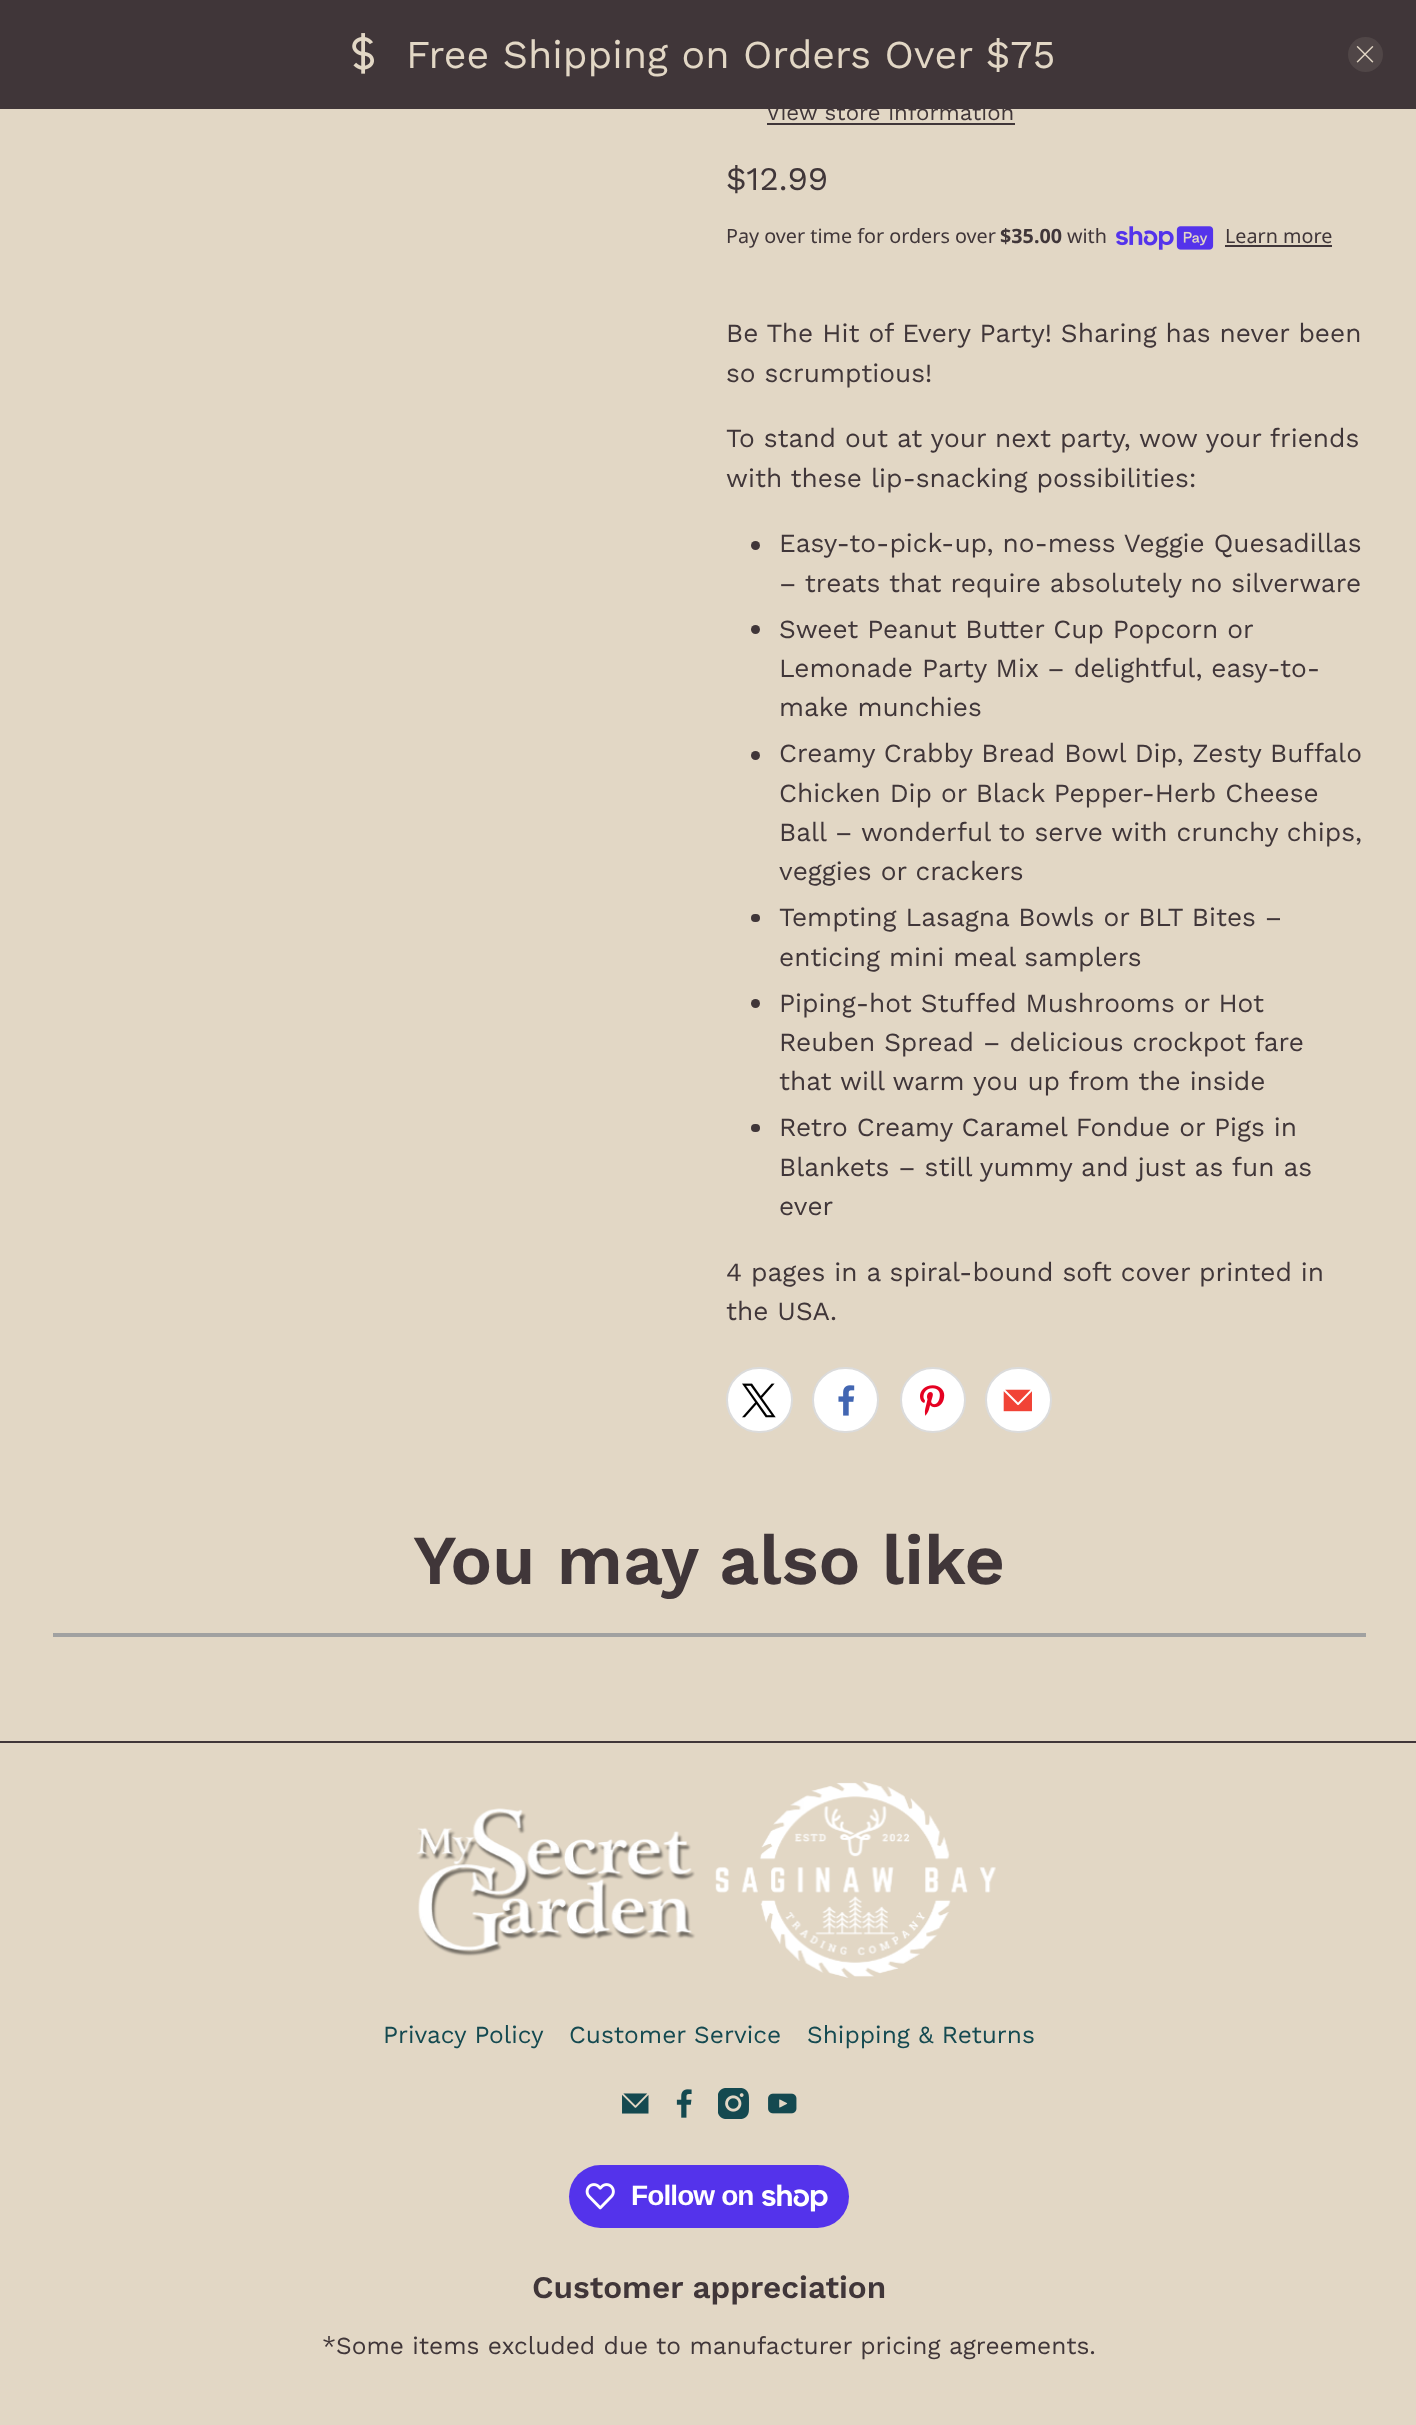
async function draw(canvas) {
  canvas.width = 1416;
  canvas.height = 2425;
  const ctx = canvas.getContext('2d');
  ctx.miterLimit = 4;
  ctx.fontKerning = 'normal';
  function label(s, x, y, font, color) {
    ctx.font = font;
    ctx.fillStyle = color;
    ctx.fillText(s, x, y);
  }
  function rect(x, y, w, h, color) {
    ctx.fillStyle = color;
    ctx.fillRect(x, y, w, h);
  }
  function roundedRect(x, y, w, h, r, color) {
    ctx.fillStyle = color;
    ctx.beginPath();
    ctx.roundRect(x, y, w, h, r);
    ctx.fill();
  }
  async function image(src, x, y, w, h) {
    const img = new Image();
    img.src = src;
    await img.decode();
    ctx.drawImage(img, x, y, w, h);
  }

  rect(0, 0, 1416, 2425, '#e2d7c5');
  rect(0, 0, 1416, 109, '#403639');
  await image('assets/img1.png', 352, 33, 22, 41);
  label('Free Shipping on Orders Over $75', 406, 68, '39.4px Work Sans', '#e2d7c5');
  ctx.fillStyle = '#504647';
  ctx.beginPath();
  ctx.arc(1365.5, 54.5, 17.5, 0, 2 * Math.PI);
  ctx.fill();
  await image('assets/img2.png', 1356, 46, 18, 17);
  label('View store information', 766, 120, '22.25px Work Sans', '#403639');
  rect(767, 123, 248, 2, '#403639');
  label('$12.99', 726, 190, '33px Work Sans', '#403639');
  label('Pay over time for orders over', 726, 243, '19.75px Noto Sans', '#403639');
  label('$35.00', 1000, 243, 'bold 19.75px Noto Sans', '#403639');
  label('with', 1067, 243, '19.75px Noto Sans', '#403639');
  await image('assets/img3.png', 1116, 226, 98, 24);
  label('Learn more', 1225, 243, '19.75px Noto Sans', '#403639');
  rect(1225, 245, 107, 2, '#403639');
  label('Be The Hit of Every Party! Sharing has never been', 726, 342, '26.25px Work Sans', '#403639');
  label('so scrumptious!', 726, 382, '26.25px Work Sans', '#403639');
  label('To stand out at your next party, wow your friends', 726, 447, '26.25px Work Sans', '#403639');
  label('with these lip-snacking possibilities:', 726, 487, '26.25px Work Sans', '#403639');
  ctx.beginPath();
  ctx.arc(755.5, 545.5, 4.5, 0, 2 * Math.PI);
  ctx.fill();
  label('Easy-to-pick-up, no-mess Veggie Quesadillas', 779, 552, '26.25px Work Sans', '#403639');
  label('– treats that require absolutely no silverware', 779, 592, '26.25px Work Sans', '#403639');
  ctx.beginPath();
  ctx.arc(755.5, 629.5, 4.5, 0, 2 * Math.PI);
  ctx.fill();
  label('Sweet Peanut Butter Cup Popcorn or', 779, 638, '26.25px Work Sans', '#403639');
  label('Lemonade Party Mix – delightful, easy-to-', 779, 677, '26.25px Work Sans', '#403639');
  label('make munchies', 779, 716, '26.25px Work Sans', '#403639');
  ctx.beginPath();
  ctx.arc(755.5, 755.5, 4.5, 0, 2 * Math.PI);
  ctx.fill();
  label('Creamy Crabby Bread Bowl Dip, Zesty Buffalo', 779, 762, '26.25px Work Sans', '#403639');
  label('Chicken Dip or Black Pepper-Herb Cheese', 779, 802, '26.25px Work Sans', '#403639');
  label('Ball – wonderful to serve with crunchy chips,', 779, 841, '26.25px Work Sans', '#403639');
  label('veggies or crackers', 779, 880, '26.25px Work Sans', '#403639');
  roundedRect(751, 914, 9, 8, 4, '#403639');
  label('Tempting Lasagna Bowls or BLT Bites –', 779, 926, '26.25px Work Sans', '#403639');
  label('enticing mini meal samplers', 779, 966, '26.25px Work Sans', '#403639');
  ctx.beginPath();
  ctx.arc(755.5, 1003.5, 4.5, 0, 2 * Math.PI);
  ctx.fill();
  label('Piping-hot Stuffed Mushrooms or Hot', 779, 1012, '26.25px Work Sans', '#403639');
  label('Reuben Spread – delicious crockpot fare', 779, 1051, '26.25px Work Sans', '#403639');
  label('that will warm you up from the inside', 779, 1090, '26.25px Work Sans', '#403639');
  roundedRect(751, 1124, 9, 8, 4, '#403639');
  label('Retro Creamy Caramel Fondue or Pigs in', 779, 1136, '26.25px Work Sans', '#403639');
  label('Blankets – still yummy and just as fun as', 779, 1176, '26.25px Work Sans', '#403639');
  label('ever', 779, 1215, '26.25px Work Sans', '#403639');
  label('4 pages in a spiral-bound soft cover printed in', 726, 1281, '26.25px Work Sans', '#403639');
  label('the USA.', 726, 1320, '26.25px Work Sans', '#403639');
  ctx.fillStyle = '#fff';
  ctx.beginPath();
  ctx.roundRect(727, 1368, 65, 64, 32);
  ctx.fill();
  ctx.strokeStyle = '#dbdbdb';
  ctx.lineWidth = 2;
  ctx.stroke();
  await image('assets/img4.png', 742, 1383, 34, 35);
  ctx.beginPath();
  ctx.roundRect(813, 1368, 65, 64, 32);
  ctx.fill();
  ctx.stroke();
  await image('assets/img5.png', 838, 1385, 17, 31);
  ctx.beginPath();
  ctx.arc(933, 1400, 32, 0, 2 * Math.PI);
  ctx.fill();
  ctx.stroke();
  await image('assets/img6.png', 920, 1385, 25, 31);
  ctx.beginPath();
  ctx.roundRect(986, 1368, 65, 64, 32);
  ctx.fill();
  ctx.stroke();
  await image('assets/img7.png', 1003, 1389, 29, 23);
  label('You may also like', 413, 1584, '600 70px Work Sans', '#403639');
  rect(53, 1633, 1313, 4, '#a1a1a1');
  rect(0, 1741, 1416, 2, '#403639');
  await image('assets/img8.png', 416, 1781, 580, 197);
  label('Privacy Policy', 383, 2043, '24.5px Work Sans', '#144950');
  label('Customer Service', 569, 2043, '24.5px Work Sans', '#144950');
  label('Shipping & Returns', 807, 2043, '24.5px Work Sans', '#144950');
  await image('assets/img9.png', 622, 2093, 27, 21);
  await image('assets/img10.png', 676, 2089, 16, 29);
  await image('assets/img11.png', 718, 2088, 31, 31);
  await image('assets/img12.png', 768, 2093, 29, 21);
  roundedRect(569, 2165, 280, 63, 31.5, '#5433eb');
  await image('assets/img13.png', 585, 2183, 30, 27);
  ctx.letterSpacing = '-0.9px';
  label('Follow on', 631, 2205, 'bold 28px Liberation Sans', '#fff');
  await image('assets/img14.png', 762, 2184, 66, 28);
  ctx.letterSpacing = '0px';
  label('Customer appreciation', 532, 2298, '600 31.5px Work Sans', '#403639');
  label('*Some items excluded due to manufacturer pricing agreements.', 322, 2354, '24.5px Work Sans', '#403639');
}

draw(document.querySelector('canvas'));
